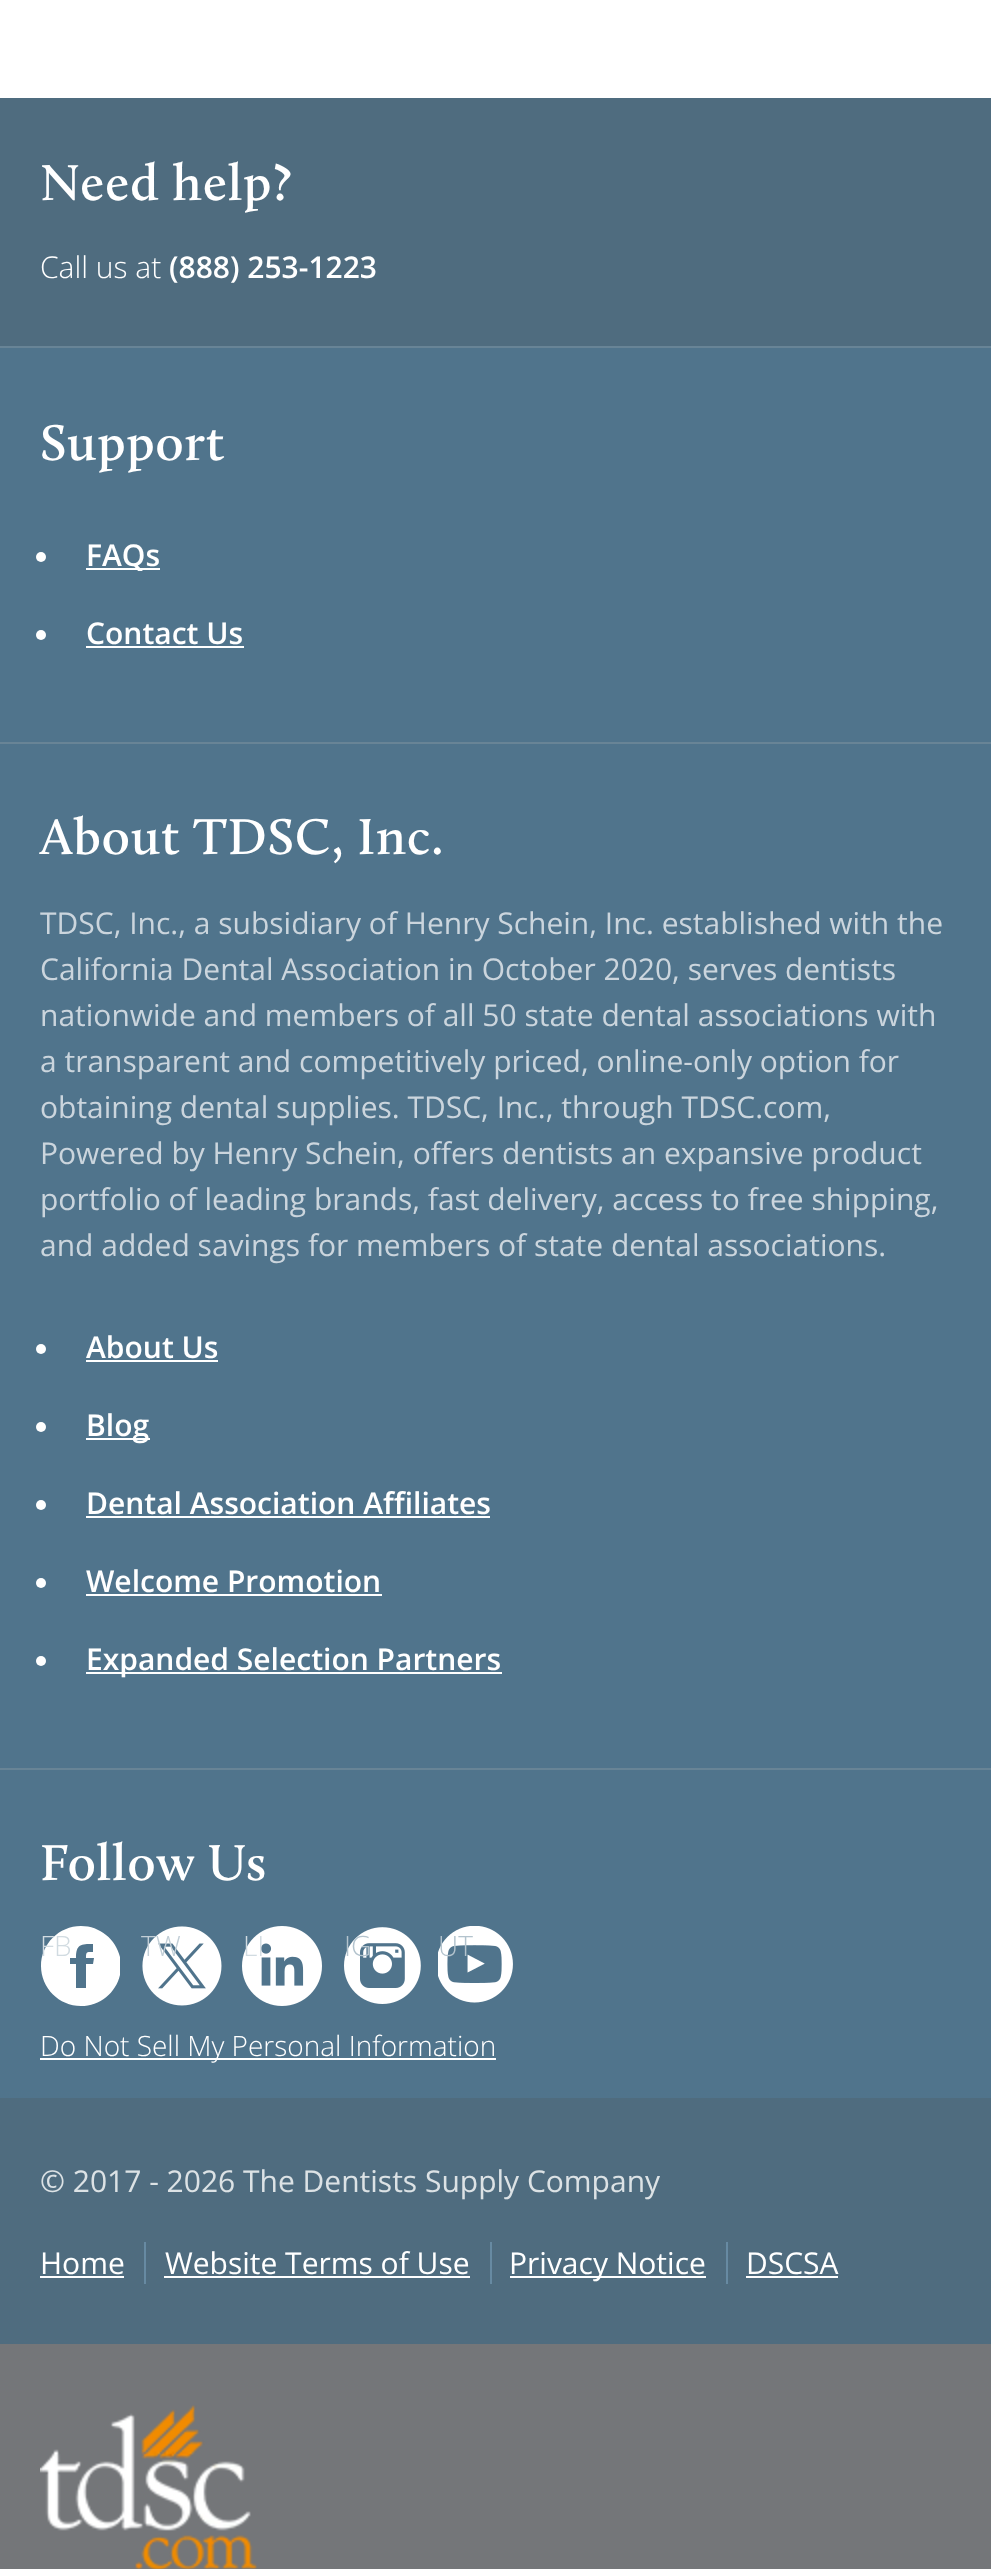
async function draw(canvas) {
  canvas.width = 991;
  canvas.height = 2569;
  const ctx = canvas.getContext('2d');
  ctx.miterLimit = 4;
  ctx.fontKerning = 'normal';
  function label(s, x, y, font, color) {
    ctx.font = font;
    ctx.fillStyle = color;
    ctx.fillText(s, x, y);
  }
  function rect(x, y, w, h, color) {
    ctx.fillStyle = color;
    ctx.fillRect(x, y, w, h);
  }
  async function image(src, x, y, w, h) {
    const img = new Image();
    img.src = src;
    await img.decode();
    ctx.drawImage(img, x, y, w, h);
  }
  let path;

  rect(0, 0, 991, 2569, '#fff');
  rect(0, 348, 991, 1750, '#50748c');
  rect(0, 98, 991, 248, '#4f6c7f');
  ctx.letterSpacing = '1px';
  label('Need help?', 40, 200, '600 52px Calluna', '#fff');
  ctx.letterSpacing = '0px';
  label('Call us at', 40, 278, '300 30px Open Sans', '#fff');
  label('(888) 253-1223', 169, 278, '600 30px Open Sans', '#fff');
  rect(0, 346, 991, 2, '#688496');
  ctx.letterSpacing = '1px';
  label('Support', 40, 460, '600 52px Calluna', '#fff');
  ctx.beginPath();
  ctx.arc(41, 557, 5, 0, 2 * Math.PI);
  ctx.fill();
  rect(86, 568, 74, 2, '#fff');
  ctx.letterSpacing = '0px';
  label('FAQs', 86, 566, '600 30px Open Sans', '#fff');
  ctx.beginPath();
  ctx.arc(41, 635, 5, 0, 2 * Math.PI);
  ctx.fill();
  label('Contact Us', 86, 644, '600 30px Open Sans', '#fff');
  rect(86, 646, 158, 2, '#fff');
  rect(0, 742, 991, 2, '#688496');
  ctx.letterSpacing = '1px';
  label('About TDSC, Inc.', 40, 854, '600 52px Calluna', '#fff');
  ctx.letterSpacing = '0px';
  label('TDSC, Inc., a subsidiary of Henry Schein, Inc. established with the', 40, 934, '30px Open Sans', '#cbd5dd');
  label('California Dental Association in October 2020, serves dentists', 40, 980, '30px Open Sans', '#cbd5dd');
  label('nationwide and members of all 50 state dental associations with', 40, 1026, '30px Open Sans', '#cbd5dd');
  label('a transparent and competitively priced, online-only option for', 40, 1072, '30px Open Sans', '#cbd5dd');
  label('obtaining dental supplies. TDSC, Inc., through TDSC.com,', 40, 1118, '30px Open Sans', '#cbd5dd');
  label('Powered by Henry Schein, offers dentists an expansive product', 40, 1164, '30px Open Sans', '#cbd5dd');
  label('portfolio of leading brands, fast delivery, access to free shipping,', 40, 1210, '30px Open Sans', '#cbd5dd');
  label('and added savings for members of state dental associations.', 40, 1256, '30px Open Sans', '#cbd5dd');
  ctx.fillStyle = '#fff';
  ctx.beginPath();
  ctx.arc(41, 1349, 5, 0, 2 * Math.PI);
  ctx.fill();
  label('About Us', 86, 1358, '600 30px Open Sans', '#fff');
  rect(86, 1360, 132, 2, '#fff');
  ctx.beginPath();
  ctx.arc(41, 1427, 5, 0, 2 * Math.PI);
  ctx.fill();
  rect(86, 1438, 64, 2, '#fff');
  label('Blog', 86, 1436, '600 30px Open Sans', '#fff');
  ctx.beginPath();
  ctx.arc(41, 1505, 5, 0, 2 * Math.PI);
  ctx.fill();
  label('Dental Association Affiliates', 86, 1514, '600 30px Open Sans', '#fff');
  rect(86, 1516, 404, 2, '#fff');
  ctx.beginPath();
  ctx.arc(41, 1583, 5, 0, 2 * Math.PI);
  ctx.fill();
  label('Welcome Promotion', 86, 1592, '600 30px Open Sans', '#fff');
  rect(86, 1594, 296, 2, '#fff');
  ctx.beginPath();
  ctx.arc(41, 1661, 5, 0, 2 * Math.PI);
  ctx.fill();
  rect(86, 1672, 416, 2, '#fff');
  label('Expanded Selection Partners', 86, 1670, '600 30px Open Sans', '#fff');
  rect(0, 1768, 991, 2, '#688496');
  ctx.letterSpacing = '1px';
  label('Follow Us', 40, 1880, '600 52px Calluna', '#fff');
  ctx.save();
  ctx.beginPath();
  ctx.rect(40, 1926, 80, 80);
  ctx.clip();
  path = new Path2D('M93 1964H86V1988H76V1964H70V1958H76C76 1944 81 1944 93 1944V1952C87 1952 86 1951 86 1958H94ZM81 1926C59 1926 41 1944 41 1966C41 1988 59 2006 81 2006C103 2006 121 1988 121 1966C121 1944 103 1926 81 1926Z');
  ctx.fill(path, 'evenodd');
  ctx.restore();
  ctx.letterSpacing = '0px';
  label('FB', 40, 1956, '300 28px Open Sans', '#d1dbe1');
  await image('assets/img1.png', 142, 1926, 80, 80);
  label('TW', 141, 1956, '300 28px Open Sans', '#c1ced6');
  await image('assets/img2.png', 242, 1926, 80, 80);
  label('LI', 243, 1956, '300 28px Open Sans', '#d1dbe1');
  await image('assets/img3.png', 344, 1927, 77, 77);
  label('IG', 344, 1956, '300 28px Open Sans', '#b3c3cd');
  await image('assets/img4.png', 438, 1926, 75, 77);
  label('UT', 438, 1956, '300 28px Open Sans', '#b3c3cd');
  rect(40, 2058, 456, 2, '#fff');
  label('Do Not Sell My Personal Information', 40, 2056, '300 28px Open Sans', '#fff');
  rect(0, 2098, 991, 246, '#4f6c7f');
  label('© 2017 - 2026 The Dentists Supply Company', 40, 2192, '30px Open Sans', '#dce2e5');
  label('Home', 40, 2274, '30px Open Sans', '#fff');
  rect(40, 2276, 84, 2, '#fff');
  rect(144, 2242, 2, 42, '#678aa2');
  label('Website Terms of Use', 165, 2274, '30px Open Sans', '#fff');
  rect(164, 2276, 306, 2, '#fff');
  rect(490, 2242, 2, 42, '#678aa2');
  rect(510, 2276, 196, 2, '#fff');
  label('Privacy Notice', 509, 2274, '30px Open Sans', '#fff');
  rect(726, 2242, 2, 42, '#678aa2');
  label('DSCSA', 746, 2274, '30px Open Sans', '#fff');
  rect(746, 2276, 92, 2, '#fff');
  rect(0, 2344, 991, 225, '#747679');
  await image('assets/img5.png', 40, 2405, 217, 164);
}

draw(document.querySelector('canvas'));
